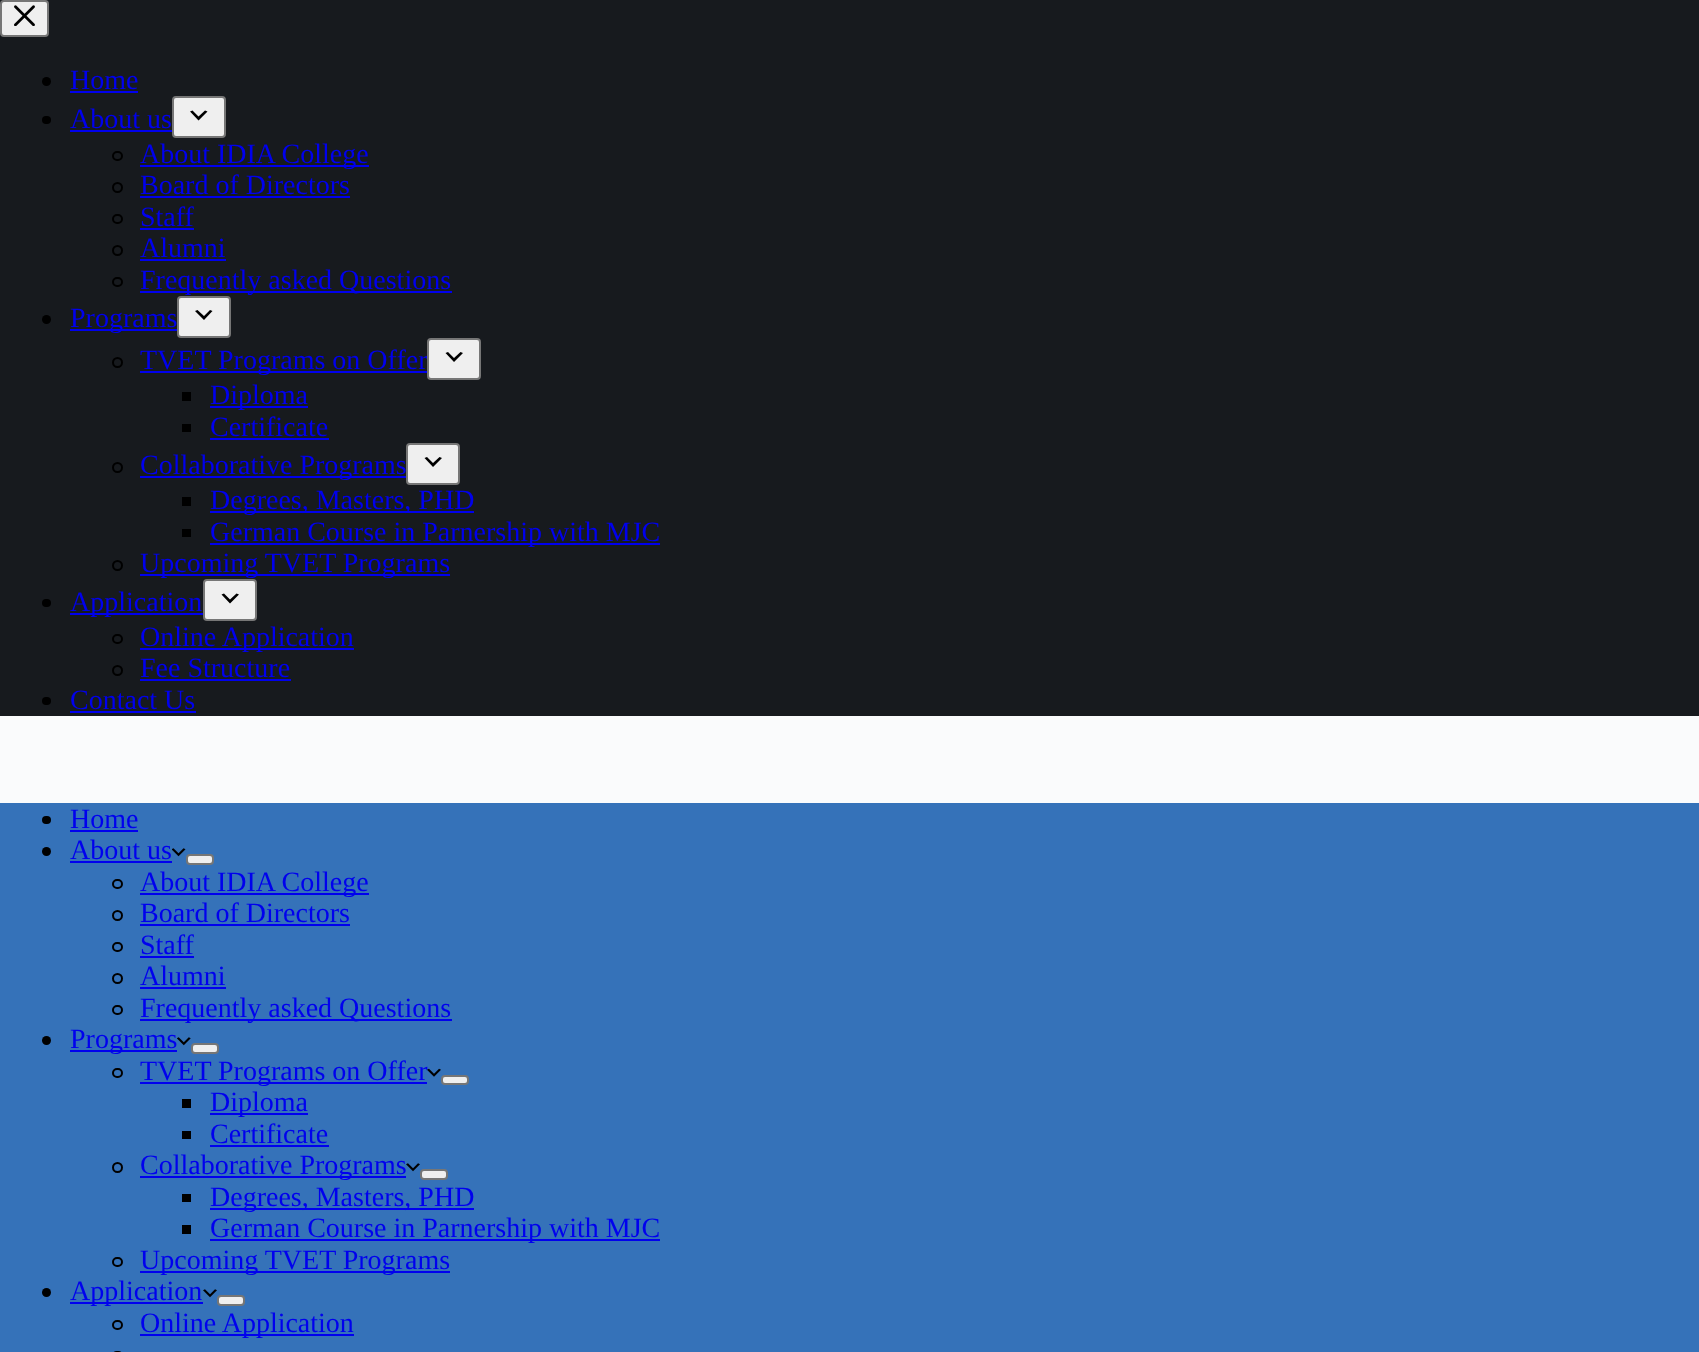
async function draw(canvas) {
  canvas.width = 1699;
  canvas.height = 1352;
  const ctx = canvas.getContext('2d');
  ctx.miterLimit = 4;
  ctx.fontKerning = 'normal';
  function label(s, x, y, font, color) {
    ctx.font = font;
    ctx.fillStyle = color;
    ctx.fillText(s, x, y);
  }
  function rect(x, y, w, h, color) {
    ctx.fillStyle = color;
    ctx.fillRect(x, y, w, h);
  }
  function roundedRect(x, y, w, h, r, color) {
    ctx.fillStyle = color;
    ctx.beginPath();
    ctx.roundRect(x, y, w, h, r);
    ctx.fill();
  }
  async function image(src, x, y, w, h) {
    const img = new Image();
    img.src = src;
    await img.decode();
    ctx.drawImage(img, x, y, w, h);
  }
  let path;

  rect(0, 0, 1699, 1352, '#fafbfc');
  rect(0, 0, 1699, 716, '#171a1e');
  ctx.fillStyle = '#efefef';
  ctx.beginPath();
  ctx.roundRect(1, 1, 47, 35, 3);
  ctx.fill();
  ctx.strokeStyle = '#767676';
  ctx.lineWidth = 2;
  ctx.stroke();
  await image('assets/img1.png', 14, 5, 21, 21);
  ctx.fillStyle = '#000';
  ctx.beginPath();
  ctx.arc(46.5, 81.5, 4.5, 0, 2 * Math.PI);
  ctx.fill();
  label('Home', 70, 89, '28px Liberation Serif', '#00e');
  rect(70, 91, 68, 2, '#00e');
  roundedRect(42, 116, 9, 8, 4, '#000');
  label('About us', 70, 128, '28px Liberation Serif', '#00e');
  rect(70, 130, 102, 2, '#00e');
  ctx.fillStyle = '#efefef';
  ctx.beginPath();
  ctx.roundRect(173, 97, 52, 40, 3);
  ctx.fill();
  ctx.stroke();
  ctx.fillStyle = '#000';
  path = new Path2D('M192.5 110.5L198.5 116.5L205 110.5L207.5 111.5L198.5 120.5L190 111.5Z');
  ctx.fill(path);
  ctx.beginPath();
  ctx.roundRect(113, 152, 9, 8, 4);
  ctx.strokeStyle = '#000';
  ctx.stroke();
  rect(140, 165, 229, 2, '#00e');
  label('About IDIA College', 140, 163, '28px Liberation Serif', '#00e');
  ctx.beginPath();
  ctx.arc(117.5, 187.5, 4.5, 0, 2 * Math.PI);
  ctx.stroke();
  label('Board of Directors', 140, 194, '28px Liberation Serif', '#00e');
  rect(140, 196, 210, 2, '#00e');
  ctx.beginPath();
  ctx.roundRect(113, 215, 9, 8, 4);
  ctx.stroke();
  label('Staff', 140, 226, '28px Liberation Serif', '#00e');
  rect(140, 228, 54, 2, '#00e');
  ctx.beginPath();
  ctx.arc(117.5, 250.5, 4.5, 0, 2 * Math.PI);
  ctx.stroke();
  label('Alumni', 140, 257, '28px Liberation Serif', '#00e');
  rect(140, 259, 86, 2, '#00e');
  ctx.beginPath();
  ctx.roundRect(113, 278, 9, 8, 4);
  ctx.stroke();
  rect(140, 291, 312, 2, '#00e');
  label('Frequently asked Questions', 140, 289, '28px Liberation Serif', '#00e');
  ctx.fillStyle = '#000';
  ctx.beginPath();
  ctx.arc(46.5, 319.5, 4.5, 0, 2 * Math.PI);
  ctx.fill();
  rect(70, 329, 107, 2, '#00e');
  label('Programs', 70, 327, '28px Liberation Serif', '#00e');
  ctx.fillStyle = '#efefef';
  ctx.beginPath();
  ctx.roundRect(178, 297, 52, 40, 3);
  ctx.fill();
  ctx.strokeStyle = '#767676';
  ctx.stroke();
  ctx.fillStyle = '#000';
  path = new Path2D('M197.5 310L204 316L210 310L212.5 311L204 320L195 311Z');
  ctx.fill(path);
  ctx.beginPath();
  ctx.arc(117.5, 362.5, 4.5, 0, 2 * Math.PI);
  ctx.strokeStyle = '#000';
  ctx.stroke();
  rect(140, 371, 287, 2, '#00e');
  label('TVET Programs on Offer', 140, 369, '28px Liberation Serif', '#00e');
  ctx.fillStyle = '#efefef';
  ctx.beginPath();
  ctx.roundRect(428, 339, 52, 40, 3);
  ctx.fill();
  ctx.strokeStyle = '#767676';
  ctx.stroke();
  ctx.fillStyle = '#000';
  path = new Path2D('M448 352L454 358L460.5 352L463 353L454 362L445.5 353Z');
  ctx.fill(path);
  rect(182, 392, 9, 9, '#000');
  rect(210, 406, 98, 2, '#00e');
  label('Diploma', 210, 404, '28px Liberation Serif', '#00e');
  rect(182, 424, 9, 8, '#000');
  label('Certificate', 210, 436, '28px Liberation Serif', '#00e');
  rect(210, 438, 119, 2, '#00e');
  ctx.beginPath();
  ctx.arc(117.5, 467.5, 4.5, 0, 2 * Math.PI);
  ctx.strokeStyle = '#000';
  ctx.stroke();
  rect(140, 476, 266, 2, '#00e');
  label('Collaborative Programs', 140, 474, '28px Liberation Serif', '#00e');
  ctx.fillStyle = '#efefef';
  ctx.beginPath();
  ctx.roundRect(407, 444, 52, 40, 3);
  ctx.fill();
  ctx.strokeStyle = '#767676';
  ctx.stroke();
  ctx.fillStyle = '#000';
  path = new Path2D('M427 457L433 463L439.5 457L442 458L433 467L424.5 458Z');
  ctx.fill(path);
  rect(182, 497, 9, 9, '#000');
  rect(210, 511, 264, 2, '#00e');
  label('Degrees, Masters, PHD', 210, 509, '28px Liberation Serif', '#00e');
  rect(182, 529, 9, 8, '#000');
  rect(210, 543, 450, 2, '#00e');
  label('German Course in Parnership with MJC', 210, 541, '28px Liberation Serif', '#00e');
  ctx.beginPath();
  ctx.arc(117.5, 565.5, 4.5, 0, 2 * Math.PI);
  ctx.strokeStyle = '#000';
  ctx.stroke();
  rect(140, 574, 310, 2, '#00e');
  label('Upcoming TVET Programs', 140, 572, '28px Liberation Serif', '#00e');
  roundedRect(42, 599, 9, 8, 4, '#000');
  rect(70, 613, 133, 2, '#00e');
  label('Application', 70, 611, '28px Liberation Serif', '#00e');
  ctx.fillStyle = '#efefef';
  ctx.beginPath();
  ctx.roundRect(204, 580, 52, 40, 3);
  ctx.fill();
  ctx.strokeStyle = '#767676';
  ctx.stroke();
  ctx.fillStyle = '#000';
  path = new Path2D('M224 593.5L230 599.5L236.5 593.5L239 594.5L230 603.5L221.5 594.5Z');
  ctx.fill(path);
  ctx.beginPath();
  ctx.roundRect(113, 635, 9, 8, 4);
  ctx.strokeStyle = '#000';
  ctx.stroke();
  rect(140, 648, 214, 2, '#00e');
  label('Online Application', 140, 646, '28px Liberation Serif', '#00e');
  ctx.beginPath();
  ctx.arc(117.5, 670.5, 4.5, 0, 2 * Math.PI);
  ctx.stroke();
  label('Fee Structure', 140, 677, '28px Liberation Serif', '#00e');
  rect(140, 679, 151, 2, '#00e');
  roundedRect(42, 697, 9, 8, 4, '#000');
  label('Contact Us', 70, 709, '28px Liberation Serif', '#00e');
  rect(70, 711, 126, 2, '#00e');
  rect(0, 803, 1699, 549, '#3572b9');
  roundedRect(42, 816, 9, 8, 4, '#000');
  label('Home', 70, 828, '28px Liberation Serif', '#00e');
  rect(70, 830, 68, 2, '#00e');
  ctx.fillStyle = '#000';
  ctx.beginPath();
  ctx.arc(46.5, 851.5, 4.5, 0, 2 * Math.PI);
  ctx.fill();
  label('About us', 70, 859, '28px Liberation Serif', '#00e');
  rect(70, 861, 102, 2, '#00e');
  await image('assets/img2.png', 172, 848, 14, 9);
  ctx.fillStyle = '#efefef';
  ctx.beginPath();
  ctx.roundRect(187, 855, 26, 9, 3);
  ctx.fill();
  ctx.strokeStyle = '#767676';
  ctx.stroke();
  ctx.beginPath();
  ctx.roundRect(113, 880, 9, 8, 4);
  ctx.strokeStyle = '#000';
  ctx.stroke();
  rect(140, 893, 229, 2, '#00e');
  label('About IDIA College', 140, 891, '28px Liberation Serif', '#00e');
  ctx.beginPath();
  ctx.arc(117.5, 915.5, 4.5, 0, 2 * Math.PI);
  ctx.stroke();
  label('Board of Directors', 140, 922, '28px Liberation Serif', '#00e');
  rect(140, 924, 210, 2, '#00e');
  ctx.beginPath();
  ctx.roundRect(113, 943, 9, 8, 4);
  ctx.stroke();
  label('Staff', 140, 954, '28px Liberation Serif', '#00e');
  rect(140, 956, 54, 2, '#00e');
  ctx.beginPath();
  ctx.arc(117.5, 978.5, 4.5, 0, 2 * Math.PI);
  ctx.stroke();
  label('Alumni', 140, 985, '28px Liberation Serif', '#00e');
  rect(140, 987, 86, 2, '#00e');
  ctx.beginPath();
  ctx.roundRect(113, 1006, 9, 8, 4);
  ctx.stroke();
  rect(140, 1019, 312, 2, '#00e');
  label('Frequently asked Questions', 140, 1017, '28px Liberation Serif', '#00e');
  ctx.fillStyle = '#000';
  ctx.beginPath();
  ctx.arc(46.5, 1040.5, 4.5, 0, 2 * Math.PI);
  ctx.fill();
  rect(70, 1050, 107, 2, '#00e');
  label('Programs', 70, 1048, '28px Liberation Serif', '#00e');
  await image('assets/img3.png', 177, 1037, 14, 9);
  ctx.fillStyle = '#efefef';
  ctx.beginPath();
  ctx.roundRect(192, 1044, 26, 9, 3);
  ctx.fill();
  ctx.strokeStyle = '#767676';
  ctx.stroke();
  ctx.beginPath();
  ctx.roundRect(113, 1069, 9, 8, 4);
  ctx.strokeStyle = '#000';
  ctx.stroke();
  rect(140, 1082, 287, 2, '#00e');
  label('TVET Programs on Offer', 140, 1080, '28px Liberation Serif', '#00e');
  await image('assets/img4.png', 427, 1068, 14, 9);
  ctx.fillStyle = '#efefef';
  ctx.beginPath();
  ctx.roundRect(442, 1076, 26, 8, 3);
  ctx.fill();
  ctx.strokeStyle = '#767676';
  ctx.stroke();
  rect(182, 1099, 9, 9, '#000');
  rect(210, 1113, 98, 2, '#00e');
  label('Diploma', 210, 1111, '28px Liberation Serif', '#00e');
  rect(182, 1131, 9, 8, '#000');
  label('Certificate', 210, 1143, '28px Liberation Serif', '#00e');
  rect(210, 1145, 119, 2, '#00e');
  ctx.beginPath();
  ctx.arc(117.5, 1167.5, 4.5, 0, 2 * Math.PI);
  ctx.strokeStyle = '#000';
  ctx.stroke();
  rect(140, 1176, 266, 2, '#00e');
  label('Collaborative Programs', 140, 1174, '28px Liberation Serif', '#00e');
  await image('assets/img5.png', 406, 1163, 14, 9);
  ctx.fillStyle = '#efefef';
  ctx.beginPath();
  ctx.roundRect(421, 1170, 26, 9, 3);
  ctx.fill();
  ctx.strokeStyle = '#767676';
  ctx.stroke();
  rect(182, 1194, 9, 8, '#000');
  rect(210, 1208, 264, 2, '#00e');
  label('Degrees, Masters, PHD', 210, 1206, '28px Liberation Serif', '#00e');
  rect(182, 1225, 9, 9, '#000');
  rect(210, 1239, 450, 2, '#00e');
  label('German Course in Parnership with MJC', 210, 1237, '28px Liberation Serif', '#00e');
  ctx.beginPath();
  ctx.roundRect(113, 1258, 9, 8, 4);
  ctx.strokeStyle = '#000';
  ctx.stroke();
  rect(140, 1271, 310, 2, '#00e');
  label('Upcoming TVET Programs', 140, 1269, '28px Liberation Serif', '#00e');
  ctx.fillStyle = '#000';
  ctx.beginPath();
  ctx.arc(46.5, 1292.5, 4.5, 0, 2 * Math.PI);
  ctx.fill();
  rect(70, 1302, 133, 2, '#00e');
  label('Application', 70, 1300, '28px Liberation Serif', '#00e');
  await image('assets/img5.png', 203, 1289, 14, 9);
  ctx.fillStyle = '#efefef';
  ctx.beginPath();
  ctx.roundRect(218, 1296, 26, 9, 3);
  ctx.fill();
  ctx.strokeStyle = '#767676';
  ctx.stroke();
  ctx.beginPath();
  ctx.roundRect(113, 1321, 9, 8, 4);
  ctx.strokeStyle = '#000';
  ctx.stroke();
  rect(140, 1334, 214, 2, '#00e');
  label('Online Application', 140, 1332, '28px Liberation Serif', '#00e');
  ctx.beginPath();
  ctx.roundRect(113, 1352, 9, 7, 4.5);
  ctx.stroke();
}

draw(document.querySelector('canvas'));
